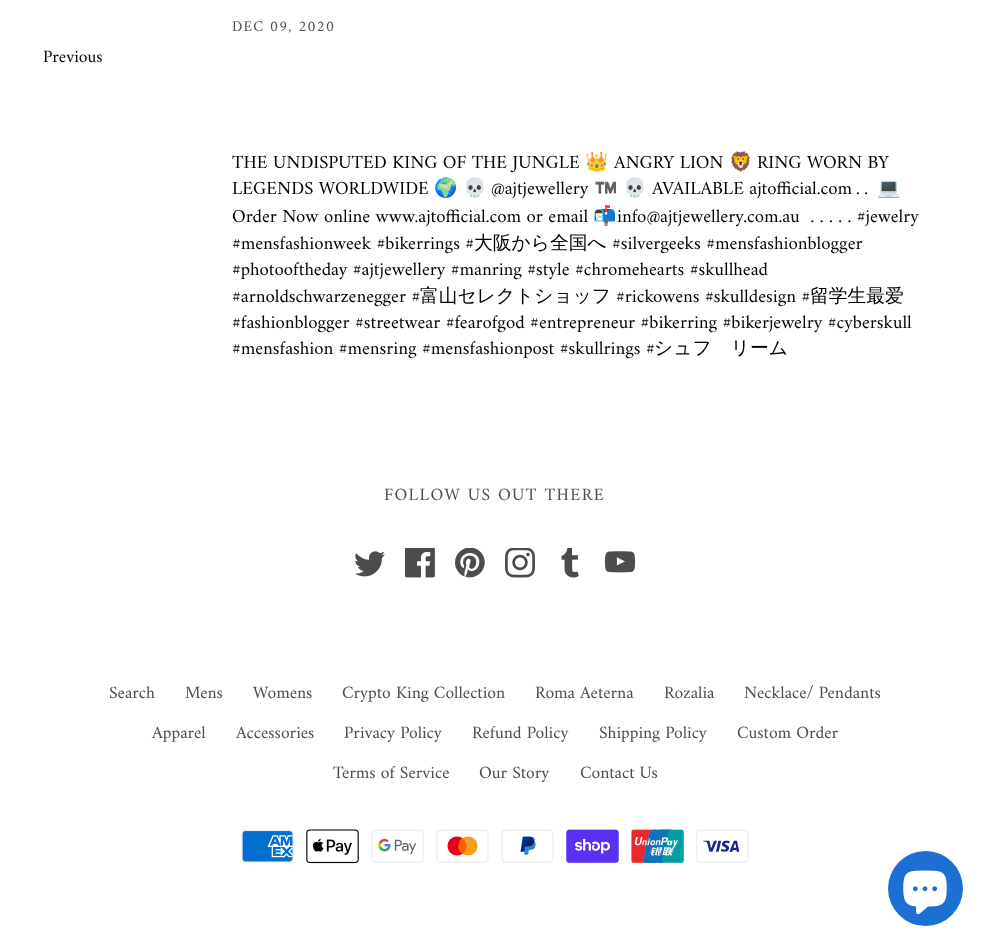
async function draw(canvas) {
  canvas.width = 989;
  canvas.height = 952;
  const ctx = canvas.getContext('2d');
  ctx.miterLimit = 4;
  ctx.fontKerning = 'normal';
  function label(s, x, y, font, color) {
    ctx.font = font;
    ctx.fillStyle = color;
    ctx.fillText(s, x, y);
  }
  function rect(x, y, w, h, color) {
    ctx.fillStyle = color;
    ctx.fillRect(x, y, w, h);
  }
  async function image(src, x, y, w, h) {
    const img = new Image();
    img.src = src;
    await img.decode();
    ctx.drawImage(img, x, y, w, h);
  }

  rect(0, 0, 989, 952, '#fff');
  label('Previous', 43, 62, '17.5px Amiri', '#000');
  ctx.letterSpacing = '1.25px';
  label('DEC 09, 2020', 232, 31, '15px Amiri', '#4c4c4c');
  ctx.letterSpacing = '0px';
  label('THE UNDISPUTED KING OF THE JUNGLE', 232, 168, '18.75px Amiri', '#000');
  label('👑', 585, 168, '18.75px Noto Color Emoji', '#000');
  label('ANGRY LION', 614, 168, '18.75px Amiri', '#000');
  label('🦁', 729, 168, '18.75px Noto Color Emoji', '#000');
  label('RING WORN BY', 757, 168, '18.75px Amiri', '#000');
  label('LEGENDS WORLDWIDE', 232, 194, '18.75px Amiri', '#000');
  label('🌍', 434, 194, '18.75px Noto Color Emoji', '#000');
  label('💀', 463, 194, '18.75px Noto Color Emoji', '#000');
  label('@ajtjewellery', 491, 194, '18.75px Amiri', '#000');
  label('™️', 594, 194, '18.75px Noto Color Emoji', '#000');
  label('💀', 623, 194, '18.75px Noto Color Emoji', '#000');
  label('AVAILABLE ajtofficial.com', 652, 194, '18.75px Amiri', '#000');
  ctx.wordSpacing = '-1px';
  label('. .', 856, 194, '18.75px Amiri', '#000');
  ctx.wordSpacing = '0px';
  label('💻', 877, 194, '18.75px Noto Color Emoji', '#000');
  label('Order Now online www.ajtofficial.com or email', 232, 222, '18.75px Amiri', '#000');
  label('📬', 593, 222, '18.75px Noto Color Emoji', '#000');
  label('info@ajtjewellery.com.au  . . . . . #jewelry', 617, 222, '18.75px Amiri', '#000');
  label('#mensfashionweek #bikerrings #', 232, 249, '18.75px Amiri', '#000');
  label('大阪から全国へ', 474, 249, '500 18.75px WenQuanYi Zen Hei', '#000');
  label('#silvergeeks #mensfashionblogger', 612, 249, '18.75px Amiri', '#000');
  label('#photooftheday #ajtjewellery #manring #style #chromehearts #skullhead', 232, 275, '18.75px Amiri', '#000');
  label('#arnoldschwarzenegger #', 232, 302, '18.75px Amiri', '#000');
  label('富山セレクトショッフ', 420, 302, '500 18.75px WenQuanYi Zen Hei', '#000');
  label('#rickowens #skulldesign #', 616, 302, '18.75px Amiri', '#000');
  label('留学生最爱', 810, 302, '500 18.75px WenQuanYi Zen Hei', '#000');
  label('#fashionblogger #streetwear #fearofgod #entrepreneur #bikerring #bikerjewelry #cyberskull', 232, 328, '18.75px Amiri', '#000');
  label('#mensfashion #mensring #mensfashionpost #skullrings #', 232, 354, '18.75px Amiri', '#000');
  label('シュプリーム', 654, 354, '500 18.75px WenQuanYi Zen Hei', '#000');
  ctx.letterSpacing = '1.4px';
  label('FOLLOW US OUT THERE', 384, 500, '17.5px Amiri', '#4c4c4c');
  await image('assets/img1.png', 355, 551, 30, 26);
  await image('assets/img2.png', 405, 548, 30, 30);
  await image('assets/img3.png', 455, 548, 30, 30);
  await image('assets/img4.png', 505, 548, 30, 30);
  await image('assets/img5.png', 561, 548, 18, 30);
  await image('assets/img6.png', 605, 551, 30, 22);
  ctx.letterSpacing = '0px';
  label('Search', 109, 698, '17.5px Amiri', '#4c4c4c');
  label('Mens', 185, 698, '17.5px Amiri', '#4c4c4c');
  label('Womens', 253, 698, '17.5px Amiri', '#4c4c4c');
  label('Crypto King Collection', 342, 698, '17.5px Amiri', '#4c4c4c');
  label('Roma Aeterna', 535, 698, '17.5px Amiri', '#4c4c4c');
  label('Rozalia', 664, 698, '17.5px Amiri', '#4c4c4c');
  label('Necklace/ Pendants', 744, 698, '17.5px Amiri', '#4c4c4c');
  label('Apparel', 152, 738, '17.5px Amiri', '#4c4c4c');
  label('Accessories', 236, 738, '17.5px Amiri', '#4c4c4c');
  label('Privacy Policy', 344, 738, '17.5px Amiri', '#4c4c4c');
  label('Refund Policy', 472, 738, '17.5px Amiri', '#4c4c4c');
  label('Shipping Policy', 599, 738, '17.5px Amiri', '#4c4c4c');
  label('Custom Order', 737, 738, '17.5px Amiri', '#4c4c4c');
  label('Terms of Service', 333, 778, '17.5px Amiri', '#4c4c4c');
  label('Our Story', 479, 778, '17.5px Amiri', '#4c4c4c');
  label('Contact Us', 580, 778, '17.5px Amiri', '#4c4c4c');
  await image('assets/img7.png', 241, 829, 53, 34);
  await image('assets/img8.png', 306, 829, 53, 35);
  await image('assets/img9.png', 371, 829, 53, 34);
  await image('assets/img10.png', 436, 829, 53, 34);
  await image('assets/img11.png', 501, 829, 53, 34);
  await image('assets/img12.png', 566, 829, 53, 34);
  await image('assets/img13.png', 631, 829, 53, 34);
  await image('assets/img14.png', 696, 829, 53, 34);
  ctx.fillStyle = '#1d70d3';
  ctx.beginPath();
  ctx.arc(925.5, 888.5, 37.5, 0, 2 * Math.PI);
  ctx.fill();
  await image('assets/img15.png', 903, 870, 44, 45);
}

draw(document.querySelector('canvas'));
